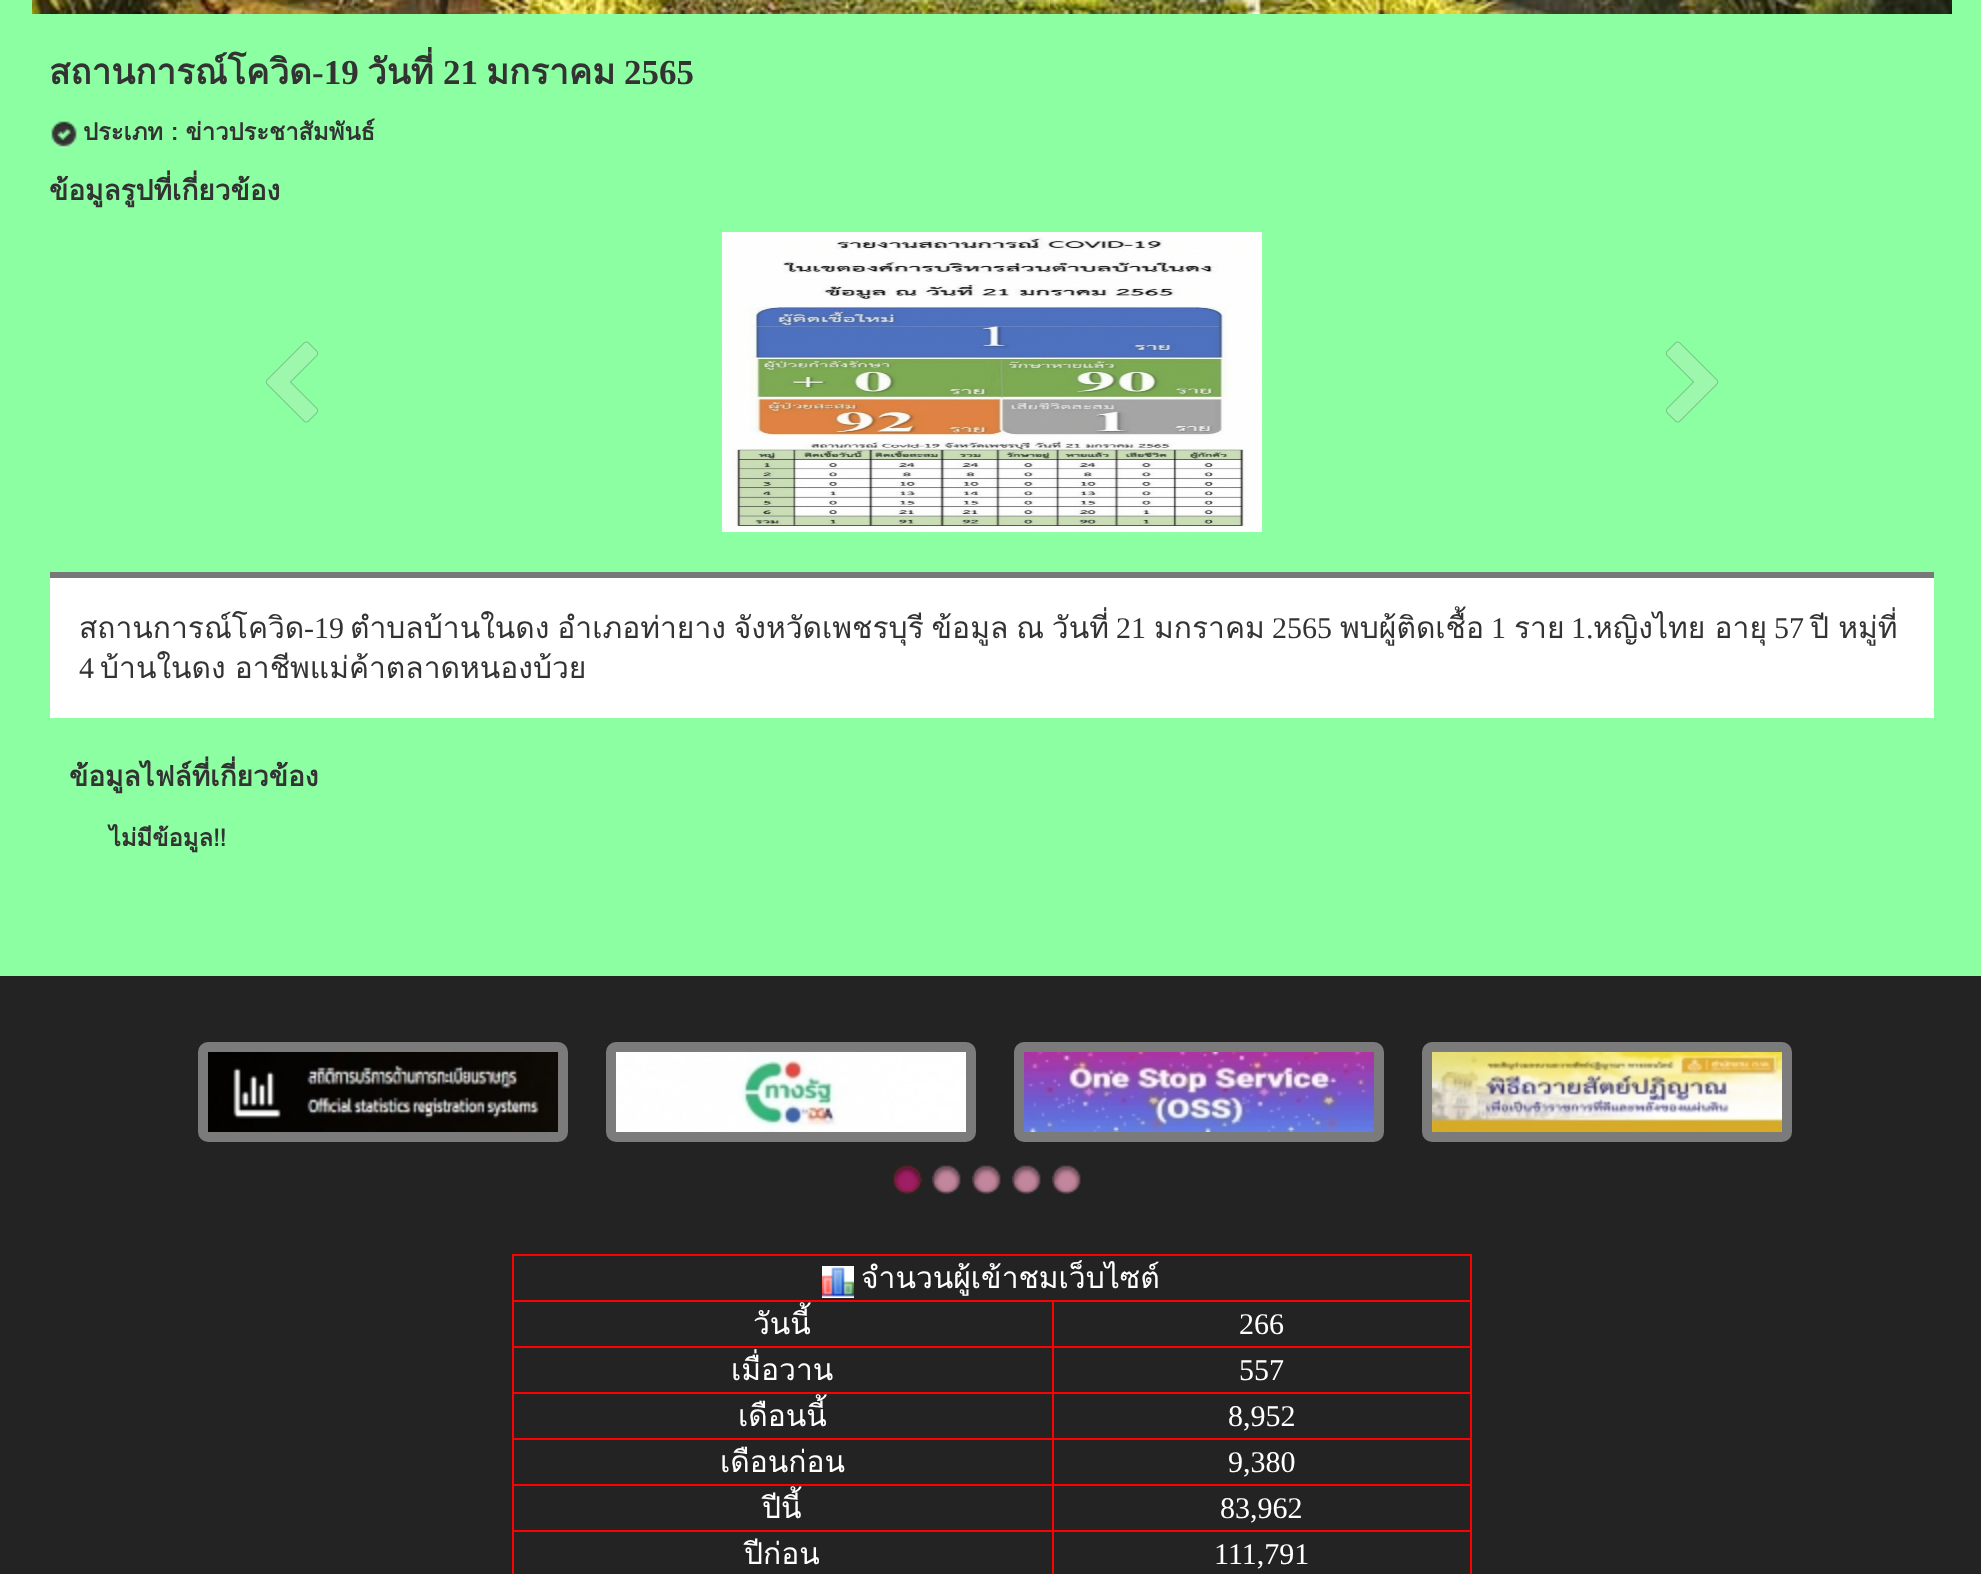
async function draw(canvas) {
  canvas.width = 1981;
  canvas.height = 1574;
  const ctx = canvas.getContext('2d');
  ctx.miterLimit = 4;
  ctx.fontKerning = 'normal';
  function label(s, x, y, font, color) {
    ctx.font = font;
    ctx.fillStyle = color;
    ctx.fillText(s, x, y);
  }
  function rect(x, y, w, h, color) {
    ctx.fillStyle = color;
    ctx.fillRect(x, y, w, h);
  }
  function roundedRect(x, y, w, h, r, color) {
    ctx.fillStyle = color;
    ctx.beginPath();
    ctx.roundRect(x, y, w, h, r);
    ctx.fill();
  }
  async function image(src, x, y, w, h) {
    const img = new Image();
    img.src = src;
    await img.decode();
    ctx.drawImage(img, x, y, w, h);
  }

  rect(0, 0, 1981, 1574, '#8cffa2');
  await image('assets/img1.png', 32, 0, 1920, 14);
  label('สถานการณ์โควิด', 49, 84, 'bold 35px Loma', '#333');
  label('-19', 312, 84, 'bold 35px Liberation Serif', '#333');
  label('วันที่', 367, 84, 'bold 35px Loma', '#333');
  label('21', 443, 84, 'bold 35px Liberation Serif', '#333');
  label('มกราคม', 486, 84, 'bold 35px Loma', '#333');
  label('2565', 624, 84, 'bold 35px Liberation Serif', '#333');
  await image('assets/img2.png', 51, 121, 26, 27);
  label('ประเภท : ข่าวประชาสัมพันธ์', 83, 140, 'bold 23.75px Loma', '#333');
  label('ข้อมูลรูปที่เกี่ยวข้อง', 49, 200, 'bold 28px Loma', '#333');
  await image('assets/img3.png', 265, 341, 54, 82);
  await image('assets/img4.png', 721, 232, 542, 301);
  await image('assets/img5.png', 1665, 341, 54, 82);
  rect(50, 578, 1884, 140, '#fff');
  rect(50, 572, 1884, 6, '#777');
  label('สถานการณ์โควิด', 79, 638, '30px Loma', '#333');
  label('-19', 304, 638, '30px Liberation Serif', '#333');
  ctx.wordSpacing = '-2.25px';
  label('ตำบลบ้านในดง อำเภอท่ายาง จังหวัดเพชรบุรี ข้อมูล ณ วันที่', 350, 638, '30px Loma', '#333');
  ctx.wordSpacing = '0px';
  label('21', 1116, 638, '30px Liberation Serif', '#333');
  label('มกราคม', 1154, 638, '30px Loma', '#333');
  label('2565', 1272, 638, '30px Liberation Serif', '#333');
  label('พบผู้ติดเชื้อ', 1340, 638, '30px Loma', '#333');
  label('1', 1491, 638, '30px Liberation Serif', '#333');
  label('ราย', 1514, 638, '30px Loma', '#333');
  label('1.', 1571, 638, '30px Liberation Serif', '#333');
  ctx.wordSpacing = '-1px';
  label('หญิงไทย อายุ', 1593, 638, '30px Loma', '#333');
  ctx.wordSpacing = '0px';
  label('57', 1774, 638, '30px Liberation Serif', '#333');
  ctx.wordSpacing = '-1px';
  label('ปี หมู่ที่', 1810, 638, '30px Loma', '#333');
  ctx.wordSpacing = '0px';
  label('4', 79, 678, '30px Liberation Serif', '#333');
  ctx.wordSpacing = '-1px';
  label('บ้านในดง อาชีพแม่ค้าตลาดหนองบ้วย', 100, 678, '30px Loma', '#333');
  ctx.wordSpacing = '0px';
  label('ข้อมูลไฟล์ที่เกี่ยวข้อง', 69, 786, 'bold 28px Loma', '#333');
  label('ไม่มีข้อมูล!!', 109, 846, 'bold 23.75px Loma', '#333');
  rect(0, 976, 1981, 598, '#232323');
  roundedRect(198, 1042, 370, 100, 10, '#7b7b7b');
  await image('assets/img6.png', 208, 1052, 350, 80);
  roundedRect(606, 1042, 370, 100, 10, '#7b7b7b');
  await image('assets/img7.png', 616, 1052, 350, 80);
  roundedRect(1014, 1042, 370, 100, 10, '#7b7b7b');
  await image('assets/img8.png', 1024, 1052, 350, 80);
  roundedRect(1422, 1042, 370, 100, 10, '#7b7b7b');
  await image('assets/img9.png', 1432, 1052, 350, 80);
  await image('assets/img10.png', 893, 1165, 29, 29);
  await image('assets/img11.png', 932, 1165, 29, 29);
  await image('assets/img11.png', 972, 1165, 29, 29);
  await image('assets/img11.png', 1012, 1165, 29, 29);
  await image('assets/img11.png', 1052, 1165, 29, 29);
  rect(512, 1254, 960, 2, '#f00');
  rect(1470, 1254, 2, 320, '#f00');
  rect(512, 1254, 2, 320, '#f00');
  await image('assets/img12.png', 822, 1266, 32, 32);
  label('จำนวนผู้เข้าชมเว็บไซต์', 861, 1288, '30px Loma', '#fff');
  rect(1052, 1300, 420, 2, '#f00');
  rect(1052, 1346, 420, 2, '#f00');
  rect(1052, 1392, 420, 2, '#f00');
  rect(1052, 1438, 420, 2, '#f00');
  rect(1052, 1484, 420, 2, '#f00');
  rect(1052, 1530, 420, 2, '#f00');
  rect(1052, 1530, 2, 44, '#f00');
  rect(512, 1530, 542, 2, '#f00');
  rect(1052, 1484, 2, 48, '#f00');
  rect(512, 1484, 542, 2, '#f00');
  rect(1052, 1438, 2, 48, '#f00');
  rect(512, 1438, 542, 2, '#f00');
  rect(1052, 1392, 2, 48, '#f00');
  rect(512, 1392, 542, 2, '#f00');
  rect(1052, 1346, 2, 48, '#f00');
  rect(512, 1346, 542, 2, '#f00');
  rect(1052, 1300, 2, 48, '#f00');
  rect(512, 1300, 542, 2, '#f00');
  label('วันนี้', 753, 1334, '30px Loma', '#fff');
  label('266', 1239, 1334, '30px Liberation Serif', '#fff');
  label('เมื่อวาน', 731, 1380, '30px Loma', '#fff');
  label('557', 1239, 1380, '30px Liberation Serif', '#fff');
  label('เดือนนี้', 738, 1426, '30px Loma', '#fff');
  label('8,952', 1228, 1426, '30px Liberation Serif', '#fff');
  label('เดือนก่อน', 720, 1472, '30px Loma', '#fff');
  label('9,380', 1228, 1472, '30px Liberation Serif', '#fff');
  label('ปีนี้', 762, 1518, '30px Loma', '#fff');
  label('83,962', 1220, 1518, '30px Liberation Serif', '#fff');
  label('ปีก่อน', 744, 1564, '30px Loma', '#fff');
  label('111,791', 1214, 1564, '30px Liberation Serif', '#fff');
}

draw(document.querySelector('canvas'));
